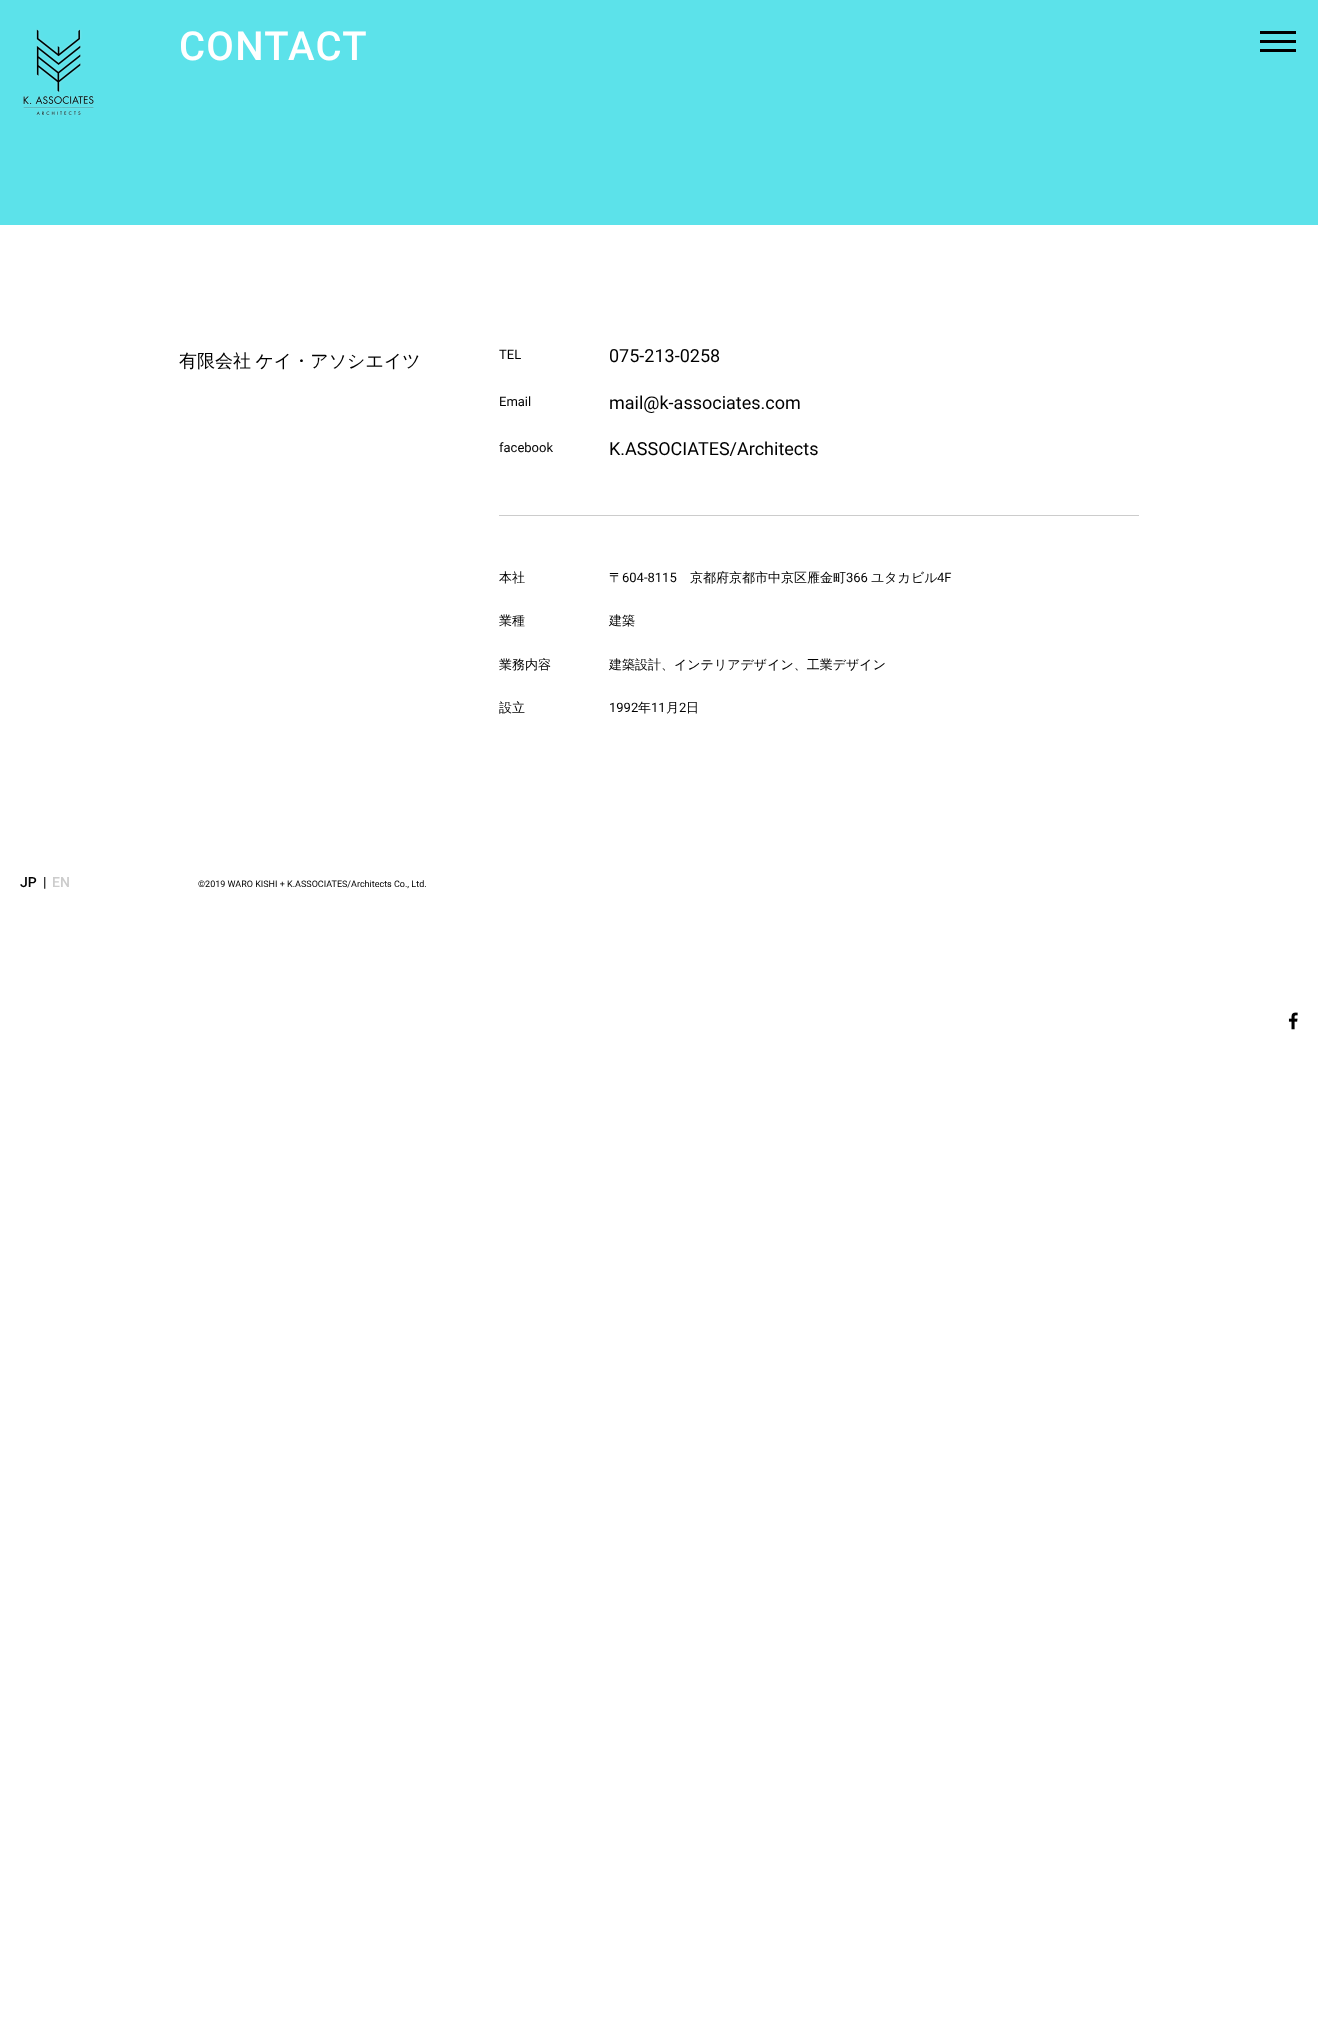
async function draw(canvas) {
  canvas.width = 1318;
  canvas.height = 2029;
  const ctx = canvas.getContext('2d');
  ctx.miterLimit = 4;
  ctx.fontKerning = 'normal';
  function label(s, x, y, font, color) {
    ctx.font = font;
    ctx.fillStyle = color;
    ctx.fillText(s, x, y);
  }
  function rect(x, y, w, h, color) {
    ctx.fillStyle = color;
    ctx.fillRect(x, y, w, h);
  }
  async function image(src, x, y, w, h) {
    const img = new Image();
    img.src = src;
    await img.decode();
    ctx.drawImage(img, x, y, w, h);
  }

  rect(0, 0, 1318, 2029, '#fff');
  rect(0, 0, 1318, 225, '#5ce2ea');
  await image('assets/img1.png', 23, 29, 71, 87);
  rect(1260, 40, 36, 3, '#000');
  rect(1260, 31, 36, 3, '#000');
  rect(1260, 49, 36, 3, '#000');
  await image('assets/img2.png', 1288, 1012, 10, 18);
  ctx.letterSpacing = '1.25px';
  label('CONTACT', 179, 60, '500 40px Roboto', '#fff');
  ctx.letterSpacing = '0px';
  ctx.wordSpacing = '-1px';
  label('有限会社 ケイ・アソシエイツ', 179, 367, '500 18px WenQuanYi Zen Hei', '#000');
  ctx.wordSpacing = '0px';
  label('TEL', 499, 359, '13px Roboto', '#000');
  label('075-213-0258', 609, 362, '18px Roboto', '#000');
  label('Email', 499, 406, '13px Roboto', '#000');
  label('mail@k-associates.com', 609, 409, '18px Roboto', '#000');
  label('facebook', 499, 452, '13px Roboto', '#000');
  label('K.ASSOCIATES/Architects', 609, 455, '18px Roboto', '#000');
  rect(499, 515, 640, 1, '#ccc');
  label('本社', 499, 582, '500 13px WenQuanYi Zen Hei', '#000');
  label('〒', 609, 582, '500 13px WenQuanYi Zen Hei', '#000');
  label('604-8115', 622, 582, '13px Roboto', '#000');
  label('京都府京都市中京区雁金町', 690, 582, '500 13px WenQuanYi Zen Hei', '#000');
  label('366', 846, 582, '13px Roboto', '#000');
  label('ユタカビル', 871, 582, '500 13px WenQuanYi Zen Hei', '#000');
  label('4F', 937, 582, '13px Roboto', '#000');
  label('業種', 499, 625, '500 13px WenQuanYi Zen Hei', '#000');
  label('建築', 609, 625, '500 13px WenQuanYi Zen Hei', '#000');
  label('業務内容', 499, 669, '500 13px WenQuanYi Zen Hei', '#000');
  label('建築設計、インテリアデザイン、工業デザイン', 609, 669, '500 13px WenQuanYi Zen Hei', '#000');
  label('設立', 499, 712, '500 13px WenQuanYi Zen Hei', '#000');
  label('1992', 609, 712, '13px Roboto', '#000');
  label('年', 638, 712, '500 13px WenQuanYi Zen Hei', '#000');
  label('11', 651, 712, '13px Roboto', '#000');
  label('月', 666, 712, '500 13px WenQuanYi Zen Hei', '#000');
  label('2', 679, 712, '13px Roboto', '#000');
  label('日', 686, 712, '500 13px WenQuanYi Zen Hei', '#000');
  label('JP', 20, 887, '500 14px Roboto', '#000');
  label('|', 43, 887, '500 14px Roboto', '#000');
  label('EN', 52, 887, '500 14px Roboto', '#ccc');
  label('©2019 WARO KISHI + K.ASSOCIATES/Architects Co., Ltd.', 198, 887, '9px Roboto', '#000');
}

draw(document.querySelector('canvas'));
